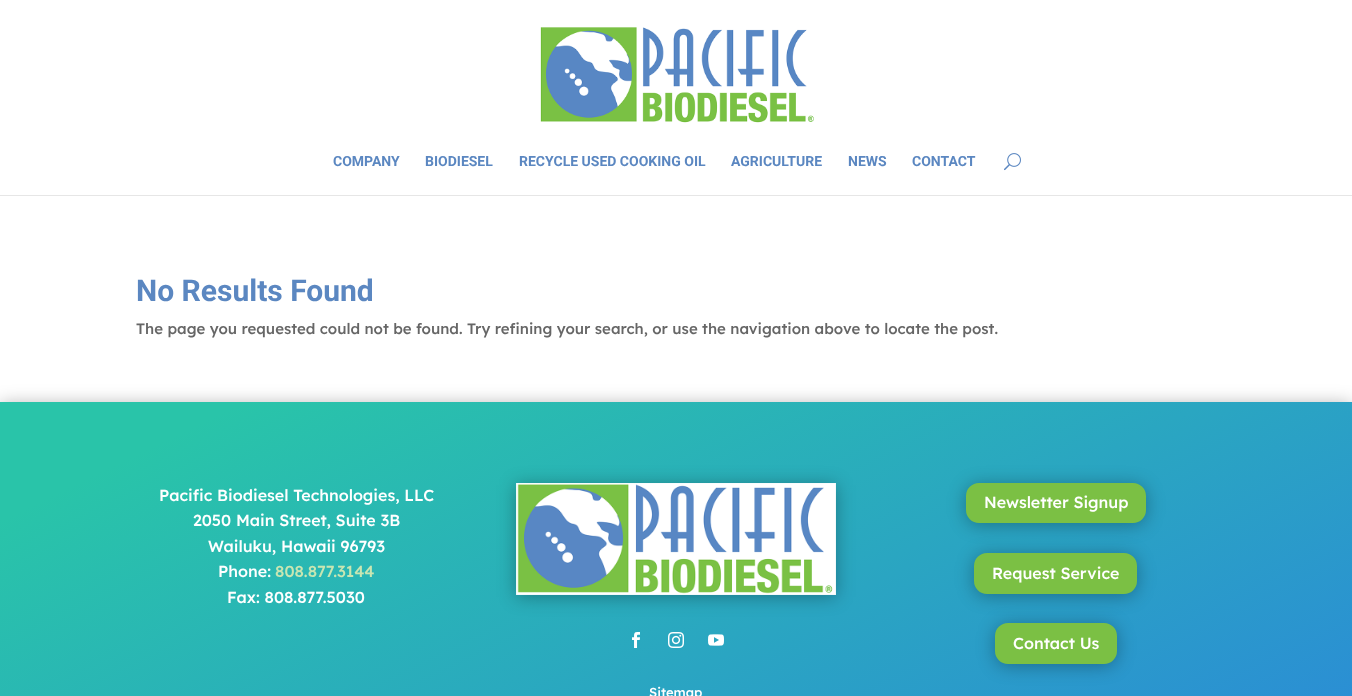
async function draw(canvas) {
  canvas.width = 1352;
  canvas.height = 696;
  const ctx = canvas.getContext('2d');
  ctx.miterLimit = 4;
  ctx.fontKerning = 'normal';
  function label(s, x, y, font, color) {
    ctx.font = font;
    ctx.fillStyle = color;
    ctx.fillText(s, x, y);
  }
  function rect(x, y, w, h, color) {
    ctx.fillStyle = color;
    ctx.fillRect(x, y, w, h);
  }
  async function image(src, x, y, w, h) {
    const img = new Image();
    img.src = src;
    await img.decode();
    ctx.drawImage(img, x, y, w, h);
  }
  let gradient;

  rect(0, 0, 1352, 696, '#fff');
  rect(0, 195, 1352, 1, '#e6e6e6');
  await image('assets/img1.png', 540, 27, 274, 96);
  label('COMPANY', 333, 166, 'bold 14px Roboto', '#5b87c1');
  label('BIODIESEL', 425, 166, 'bold 14px Roboto', '#5b87c1');
  label('RECYCLE USED COOKING OIL', 519, 166, 'bold 14px Roboto', '#5b87c1');
  label('AGRICULTURE', 731, 166, 'bold 14px Roboto', '#5b87c1');
  label('NEWS', 848, 166, 'bold 14px Roboto', '#5b87c1');
  label('CONTACT', 912, 166, 'bold 14px Roboto', '#5b87c1');
  await image('assets/img2.png', 1004, 153, 17, 18);
  label('No Results Found', 136, 301, 'bold 30px Roboto', '#5b87c1');
  label('The page you requested could not be found. Try refining your search, or use the navigation above to locate the post.', 136, 334, '500 15px Lexend', '#666');
  ctx.fillStyle = '#0000004d';
  ctx.filter = 'blur(9px)';
  ctx.beginPath();
  ctx.rect(0, 404, 1352, 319);
  ctx.fill();
  ctx.filter = 'none';
  gradient = ctx.createLinearGradient(464, 176, 888, 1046);
  gradient.addColorStop(0.11, '#29c4a9');
  gradient.addColorStop(1, '#2b87da');
  ctx.fillStyle = gradient;
  ctx.fillRect(0, 402, 1352, 294);
  label('Pacific Biodiesel Technologies, LLC', 159, 501, '500 16px Lexend', '#fff');
  label('2050 Main Street, Suite 3B', 193, 526, '500 16px Lexend', '#fff');
  label('Wailuku, Hawaii 96793', 208, 552, '500 16px Lexend', '#fff');
  label('Phone:', 218, 577, '500 16px Lexend', '#fff');
  label('808.877.3144', 275, 577, '500 16px Lexend', '#c9e6b2');
  label('Fax: 808.877.5030', 227, 603, '500 16px Lexend', '#fff');
  ctx.fillStyle = '#0000004d';
  ctx.filter = 'blur(9px)';
  ctx.beginPath();
  ctx.roundRect(966, 485, 180, 40, 13);
  ctx.fill();
  ctx.filter = 'none';
  ctx.fillStyle = '#7bc044';
  ctx.beginPath();
  ctx.roundRect(967, 484, 178, 38, 12);
  ctx.fill();
  ctx.strokeStyle = '#7bc044';
  ctx.lineWidth = 2;
  ctx.stroke();
  label('Newsletter Signup', 984, 508, '500 16px Lexend', '#fff');
  ctx.fillStyle = '#0000004d';
  ctx.filter = 'blur(9px)';
  ctx.beginPath();
  ctx.roundRect(974, 555, 163, 41, 13);
  ctx.fill();
  ctx.filter = 'none';
  ctx.fillStyle = '#7bc044';
  ctx.beginPath();
  ctx.roundRect(975, 554, 161, 39, 12);
  ctx.fill();
  ctx.stroke();
  label('Request Service', 992, 579, '500 16px Lexend', '#fff');
  ctx.fillStyle = '#0000004d';
  ctx.filter = 'blur(9px)';
  ctx.beginPath();
  ctx.roundRect(995, 625, 122, 41, 13);
  ctx.fill();
  ctx.filter = 'none';
  ctx.fillStyle = '#7bc044';
  ctx.beginPath();
  ctx.roundRect(996, 624, 120, 39, 12);
  ctx.fill();
  ctx.stroke();
  label('Contact Us', 1013, 649, '500 16px Lexend', '#fff');
  ctx.fillStyle = '#0000004d';
  ctx.filter = 'blur(9px)';
  ctx.beginPath();
  ctx.rect(516, 485, 320, 112);
  ctx.fill();
  ctx.filter = 'none';
  await image('assets/img3.png', 516, 483, 320, 112);
  await image('assets/img4.png', 632, 632, 8, 16);
  await image('assets/img5.png', 668, 632, 16, 16);
  await image('assets/img6.png', 708, 634, 16, 12);
  label('Sitemap', 649, 697, '500 13px Lexend', '#fff');
}

draw(document.querySelector('canvas'));
